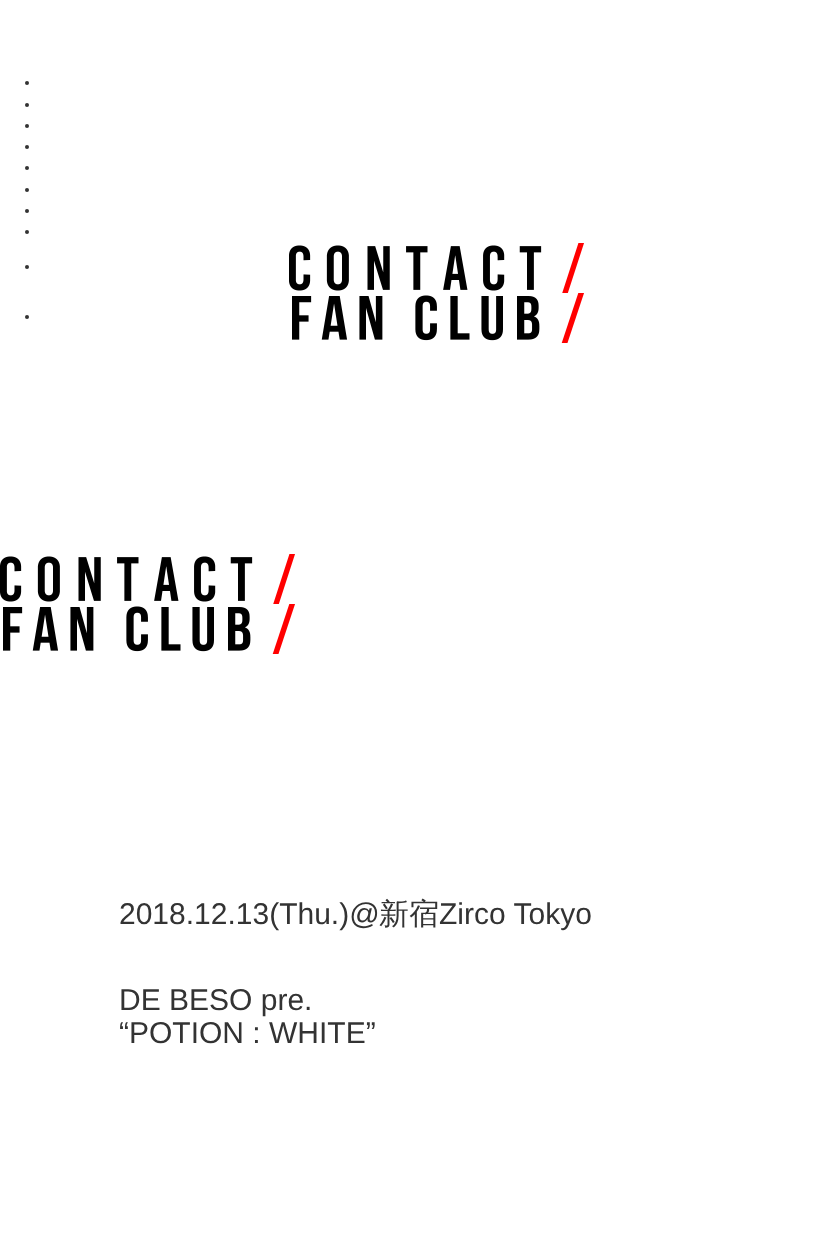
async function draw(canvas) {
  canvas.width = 832;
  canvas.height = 1250;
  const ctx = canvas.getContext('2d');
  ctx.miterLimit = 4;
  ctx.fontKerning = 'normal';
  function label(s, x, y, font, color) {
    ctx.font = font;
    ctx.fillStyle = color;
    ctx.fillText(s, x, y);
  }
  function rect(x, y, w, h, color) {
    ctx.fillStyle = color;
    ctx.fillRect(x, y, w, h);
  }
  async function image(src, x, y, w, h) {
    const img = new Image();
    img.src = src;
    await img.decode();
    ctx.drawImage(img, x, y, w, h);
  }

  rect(0, 0, 832, 1250, '#fff');
  ctx.fillStyle = '#333';
  ctx.beginPath();
  ctx.arc(27, 83, 2, 0, 2 * Math.PI);
  ctx.fill();
  ctx.beginPath();
  ctx.arc(27, 105, 2, 0, 2 * Math.PI);
  ctx.fill();
  ctx.beginPath();
  ctx.arc(27, 126, 2, 0, 2 * Math.PI);
  ctx.fill();
  ctx.beginPath();
  ctx.arc(27, 147, 2, 0, 2 * Math.PI);
  ctx.fill();
  ctx.beginPath();
  ctx.arc(27, 168, 2, 0, 2 * Math.PI);
  ctx.fill();
  ctx.beginPath();
  ctx.arc(27, 190, 2, 0, 2 * Math.PI);
  ctx.fill();
  ctx.beginPath();
  ctx.arc(27, 211, 2, 0, 2 * Math.PI);
  ctx.fill();
  ctx.beginPath();
  ctx.arc(27, 232, 2, 0, 2 * Math.PI);
  ctx.fill();
  ctx.beginPath();
  ctx.arc(27, 267, 2, 0, 2 * Math.PI);
  ctx.fill();
  await image('assets/img1.png', 289, 243, 295, 50);
  ctx.beginPath();
  ctx.arc(27, 317, 2, 0, 2 * Math.PI);
  ctx.fill();
  await image('assets/img2.png', 292, 293, 292, 50);
  await image('assets/img1.png', 0, 554, 295, 50);
  await image('assets/img2.png', 3, 604, 292, 50);
  label('2018.12.13(Thu.)@', 119, 924, '30px Liberation Sans', '#333');
  label('新宿', 379, 924, '500 30px WenQuanYi Zen Hei', '#333');
  label('Zirco Tokyo', 439, 924, '30px Liberation Sans', '#333');
  label('DE BESO pre.', 119, 1010, '30px Liberation Sans', '#333');
  label('“POTION : WHITE”', 119, 1043, '30px Liberation Sans', '#333');
}

draw(document.querySelector('canvas'));
